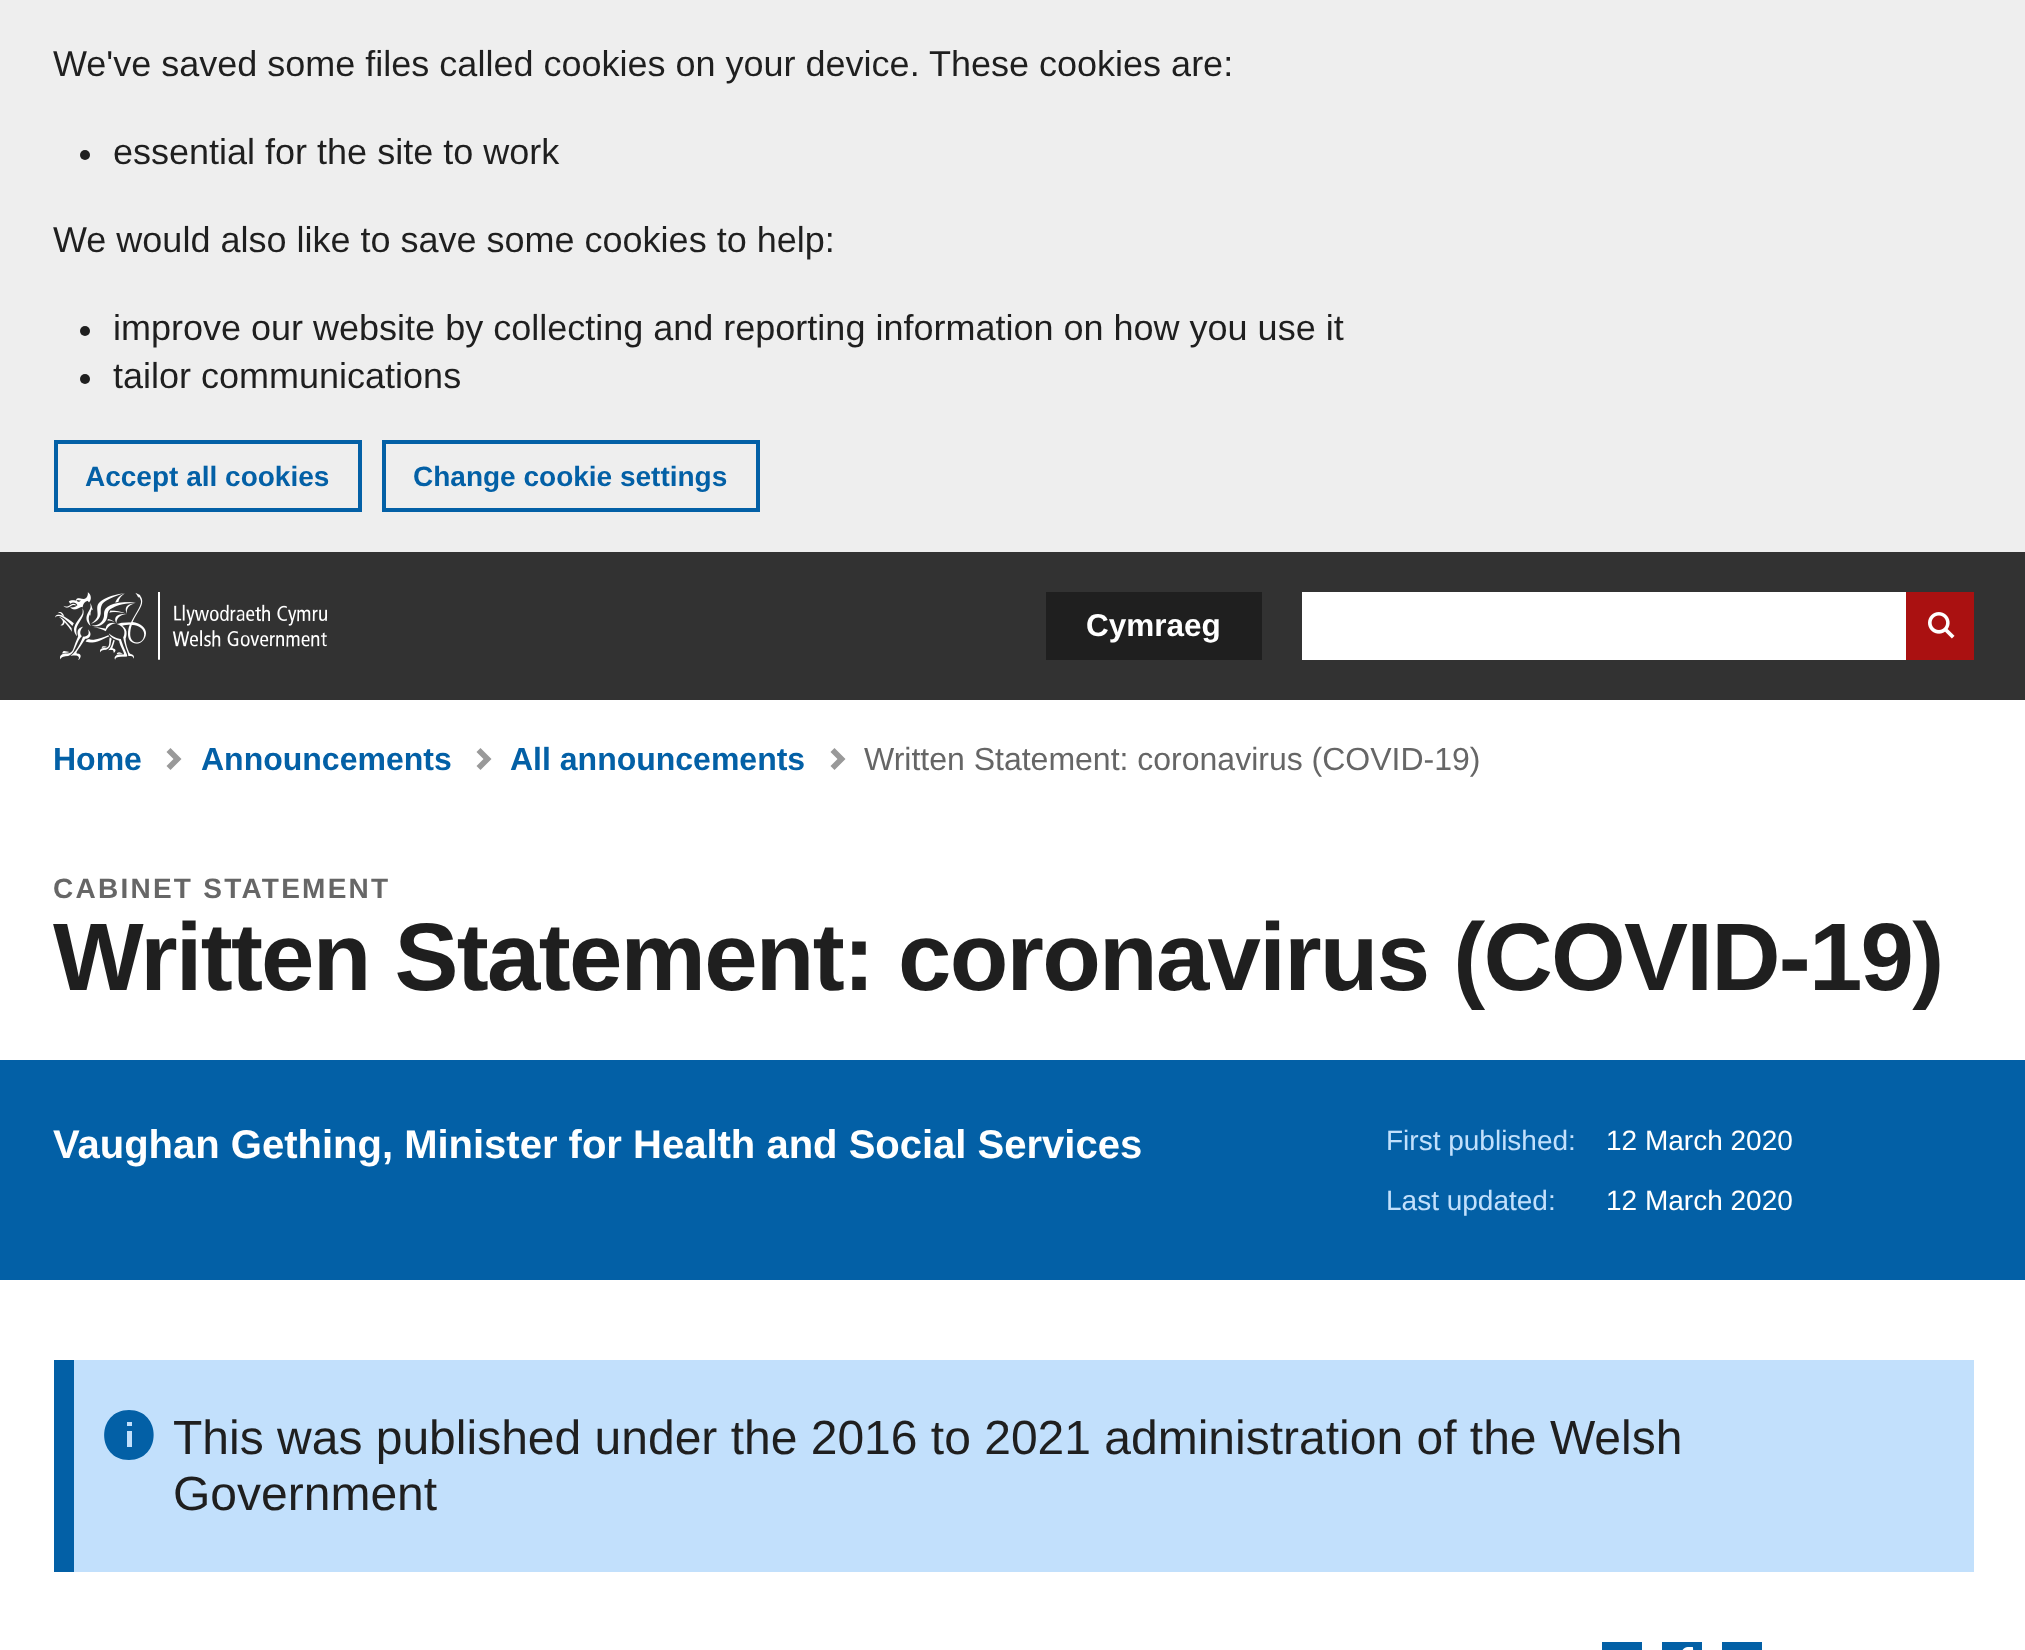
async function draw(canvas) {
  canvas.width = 2025;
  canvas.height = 1650;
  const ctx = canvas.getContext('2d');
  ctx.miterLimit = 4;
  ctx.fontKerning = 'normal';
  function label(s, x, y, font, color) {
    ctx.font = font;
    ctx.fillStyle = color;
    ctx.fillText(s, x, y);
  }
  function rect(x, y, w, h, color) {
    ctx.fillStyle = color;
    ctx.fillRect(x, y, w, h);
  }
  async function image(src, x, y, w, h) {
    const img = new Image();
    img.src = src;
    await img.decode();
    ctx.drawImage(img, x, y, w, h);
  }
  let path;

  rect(0, 0, 2025, 1650, '#eee');
  label('We\'ve saved some files called cookies on your device. These cookies are:', 53, 76, '36px Liberation Sans', '#1f1f1f');
  ctx.beginPath();
  ctx.arc(85, 155, 5, 0, 2 * Math.PI);
  ctx.fill();
  label('essential for the site to work', 113, 164, '36px Liberation Sans', '#1f1f1f');
  label('We would also like to save some cookies to help:', 53, 252, '36px Liberation Sans', '#1f1f1f');
  ctx.beginPath();
  ctx.arc(85, 331, 5, 0, 2 * Math.PI);
  ctx.fill();
  label('improve our website by collecting and reporting information on how you use it', 113, 340, '36px Liberation Sans', '#1f1f1f');
  ctx.beginPath();
  ctx.arc(85, 379, 5, 0, 2 * Math.PI);
  ctx.fill();
  label('tailor communications', 113, 388, '36px Liberation Sans', '#1f1f1f');
  ctx.strokeStyle = '#0360a6';
  ctx.lineWidth = 4;
  ctx.strokeRect(56, 442, 304, 68);
  label('Accept all cookies', 85, 486, 'bold 28px Liberation Sans', '#0360a6');
  ctx.strokeRect(384, 442, 374, 68);
  label('Change cookie settings', 413, 486, 'bold 28px Liberation Sans', '#0360a6');
  rect(0, 552, 2025, 148, '#323232');
  await image('assets/img1.png', 55, 592, 272, 68);
  rect(1046, 592, 216, 68, '#1f1f1f');
  label('Cymraeg', 1086, 636, 'bold 31.5px Liberation Sans', '#fff');
  rect(1302, 592, 604, 68, '#fff');
  rect(1906, 592, 68, 68, '#a11');
  await image('assets/img2.png', 1928, 612, 27, 27);
  rect(0, 700, 2025, 950, '#fff');
  ctx.fillStyle = '#999';
  path = new Path2D('M181.5 759L170.5 748L166.5 752L173.5 759L166.5 766L170.5 770Z');
  ctx.fill(path);
  label('Home', 53, 770, 'bold 32px Liberation Sans', '#0360a6');
  ctx.fillStyle = '#999';
  path = new Path2D('M491.5 759L480.5 748L476.5 752L483.5 759L476.5 766L480.5 770Z');
  ctx.fill(path);
  label('Announcements', 201, 770, 'bold 32px Liberation Sans', '#0360a6');
  ctx.fillStyle = '#999';
  path = new Path2D('M845.5 759L834.5 748L830.5 752L837.5 759L830.5 766L834.5 770Z');
  ctx.fill(path);
  label('All announcements', 510, 770, 'bold 32px Liberation Sans', '#0360a6');
  label('Written Statement: coronavirus (COVID-19)', 864, 770, '32px Liberation Sans', '#666');
  ctx.letterSpacing = '2.25px';
  label('CABINET STATEMENT', 53, 898, 'bold 28px Liberation Sans', '#666');
  ctx.letterSpacing = '-1.75px';
  label('Written Statement: coronavirus (COVID-19)', 53, 990, 'bold 96px Liberation Sans', '#1f1f1f');
  rect(0, 1060, 2025, 220, '#0360a6');
  ctx.letterSpacing = '0px';
  label('Vaughan Gething, Minister for Health and Social Services', 53, 1158, 'bold 40px Liberation Sans', '#fff');
  label('First published:', 1386, 1150, '28px Liberation Sans', '#c2e0fc');
  label('12 March 2020', 1606, 1150, '28px Liberation Sans', '#fff');
  label('Last updated:', 1386, 1210, '28px Liberation Sans', '#c2e0fc');
  label('12 March 2020', 1606, 1210, '28px Liberation Sans', '#fff');
  rect(74, 1360, 1900, 212, '#c2e0fc');
  ctx.fillStyle = '#0360a6';
  path = new Path2D('M129 1410C96 1410 96 1460 129 1460C162 1460 162 1410 129 1410M132 1447H127V1431H132ZM132 1426H127V1422H132');
  ctx.fill(path);
  rect(54, 1360, 20, 212, '#0360a6');
  label('This was published under the 2016 to 2021 administration of the Welsh', 173, 1454, '48px Liberation Sans', '#1f1f1f');
  label('Government', 173, 1510, '48px Liberation Sans', '#1f1f1f');
  rect(1602, 1642, 40, 8, '#0360a6');
  await image('assets/img3.png', 1662, 1642, 40, 8);
  rect(1722, 1642, 40, 8, '#0360a6');
}

draw(document.querySelector('canvas'));
